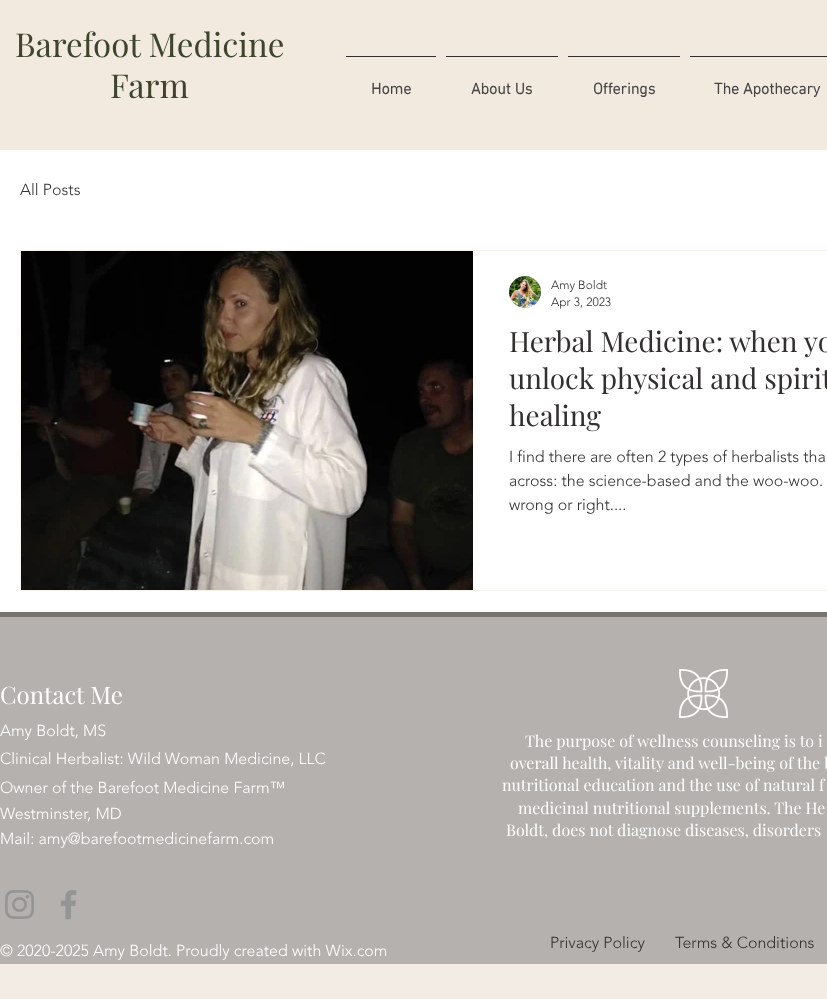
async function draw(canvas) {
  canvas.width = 827;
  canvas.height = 999;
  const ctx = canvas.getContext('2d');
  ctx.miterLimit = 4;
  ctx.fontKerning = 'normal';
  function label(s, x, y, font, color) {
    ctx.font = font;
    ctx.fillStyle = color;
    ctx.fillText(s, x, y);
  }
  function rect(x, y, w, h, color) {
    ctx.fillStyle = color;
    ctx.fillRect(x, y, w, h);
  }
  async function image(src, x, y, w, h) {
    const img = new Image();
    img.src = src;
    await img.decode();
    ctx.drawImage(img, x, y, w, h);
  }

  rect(0, 0, 827, 999, '#f2ece4');
  rect(0, 0, 827, 150, '#f2e9df');
  label('Barefoot Medicine', 15, 57, '33px Playfair Display', '#3d452f');
  label('Farm', 110, 98, '33px Playfair Display', '#3d452f');
  rect(346, 56, 90, 1, '#32302f');
  label('Home', 371, 94, 'bold 16px "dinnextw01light"', '#444');
  rect(446, 56, 112, 1, '#32302f');
  label('About Us', 471, 94, 'bold 16px "dinnextw01light"', '#444');
  rect(568, 56, 112, 1, '#32302f');
  label('Offerings', 593, 94, 'bold 16px "dinnextw01light"', '#444');
  rect(690, 56, 137, 1, '#32302f');
  label('The Apothecary', 714, 94, 'bold 16px "dinnextw01light"', '#444');
  rect(0, 150, 827, 462, '#fff');
  label('All Posts', 20, 195, '300 16px "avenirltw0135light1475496"', '#32302f');
  ctx.strokeStyle = '#f5f1eb';
  ctx.strokeRect(20.5, 250.5, 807, 340);
  await image('assets/img1.png', 21, 251, 452, 339);
  await image('assets/img2.png', 509, 276, 32, 32);
  label('Amy Boldt', 551, 289, '300 12px "avenirltw0135light1475496"', '#32302f');
  label('Apr 3, 2023', 551, 306, '300 12px "avenirltw0135light1475496"', '#32302f');
  label('Herbal Medicine: when yo', 509, 352, '28px Playfair Display', '#32302f');
  label('unlock physical and spirit', 509, 389, '28px Playfair Display', '#32302f');
  label('healing', 509, 426, '28px Playfair Display', '#32302f');
  label('I find there are often 2 types of herbalists tha', 509, 462, '300 16px "avenirltw0135light1475496"', '#32302f');
  label('across: the science-based and the woo-woo.', 509, 486, '300 16px "avenirltw0135light1475496"', '#32302f');
  label('wrong or right....', 509, 510, '300 16px "avenirltw0135light1475496"', '#32302f');
  rect(0, 617, 827, 347, '#b5b1ae');
  rect(0, 612, 827, 5, '#78736f');
  label('Contact Me', 0, 704, '24px Playfair Display', '#fff');
  await image('assets/img3.png', 679, 669, 49, 49);
  label('Amy Boldt, MS', 0, 736, '300 16px "avenirltw0135light1475496"', '#fff');
  label('Clinical Herbalist: Wild Woman Medicine, LLC', 0, 764, '300 16px "avenirltw0135light1475496"', '#fff');
  label('Owner of the Barefoot Medicine Farm™', 0, 793, '300 16px "avenirltw0135light1475496"', '#fff');
  label('Westminster, MD', 0, 819, '300 16px "avenirltw0135light1475496"', '#fff');
  label('Mail: amy@barefootmedicinefarm.com', 0, 844, '300 16px "avenirltw0135light1475496"', '#fff');
  label('The purpose of wellness counseling is to i', 525, 747, '16px Playfair Display', '#fff');
  label('overall health, vitality and well-being of the b', 510, 769, '16px Playfair Display', '#fff');
  label('nutritional education and the use of natural f', 502, 791, '16px Playfair Display', '#fff');
  label('medicinal nutritional supplements. The He', 518, 814, '16px Playfair Display', '#fff');
  label('Boldt, does not diagnose diseases, disorders', 506, 836, '16px Playfair Display', '#fff');
  await image('assets/img4.png', 5, 890, 29, 29);
  await image('assets/img5.png', 60, 890, 17, 30);
  label('© 2020-2025 Amy Boldt. Proudly created with Wix.com', 0, 956, '300 16px "avenirltw0135light1475496"', '#fff');
  label('Privacy Policy', 550, 948, '300 16px "avenirltw0135light1475496"', '#32302f');
  label('Terms & Conditions', 675, 948, '300 16px "avenirltw0135light1475496"', '#32302f');
}

draw(document.querySelector('canvas'));
